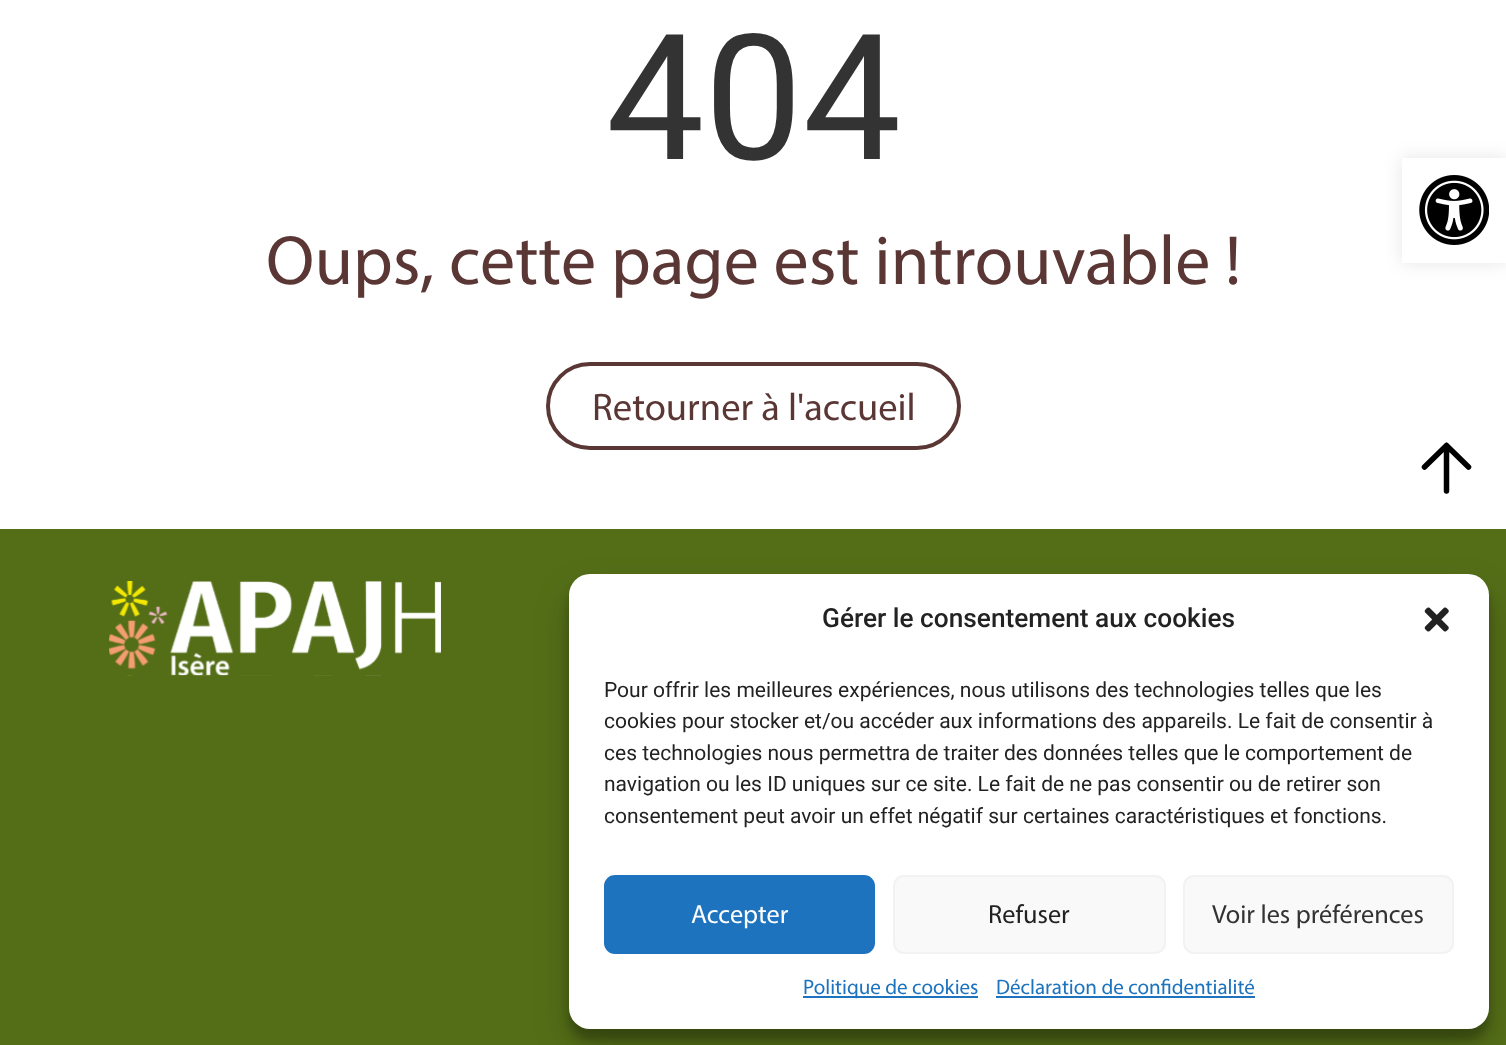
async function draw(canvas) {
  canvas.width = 1506;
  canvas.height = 1045;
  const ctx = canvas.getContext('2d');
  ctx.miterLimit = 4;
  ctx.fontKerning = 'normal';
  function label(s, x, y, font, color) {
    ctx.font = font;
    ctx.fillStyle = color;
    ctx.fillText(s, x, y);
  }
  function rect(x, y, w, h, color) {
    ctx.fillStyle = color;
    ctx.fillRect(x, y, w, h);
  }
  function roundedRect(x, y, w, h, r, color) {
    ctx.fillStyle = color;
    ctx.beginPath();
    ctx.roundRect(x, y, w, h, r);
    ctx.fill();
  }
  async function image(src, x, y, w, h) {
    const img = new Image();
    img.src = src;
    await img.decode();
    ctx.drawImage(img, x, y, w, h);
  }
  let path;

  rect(0, 0, 1506, 1045, '#fff');
  label('404', 606, 159, '175px Roboto', '#333');
  label('Oups, cette page est introuvable !', 266, 284, '70px Myriad', '#5a3734');
  ctx.beginPath();
  ctx.roundRect(548, 364, 411, 84, 42);
  ctx.strokeStyle = '#5a3734';
  ctx.lineWidth = 4;
  ctx.stroke();
  label('Retourner à l\'accueil', 592, 420, '38.5px Myriad', '#5a3734');
  path = new Path2D('M1446.5 491V445.5M1446.5 445.5L1468.5 467M1446.5 445.5L1424.5 467');
  ctx.strokeStyle = '#000';
  ctx.lineWidth = 5.5;
  ctx.lineCap = 'round';
  ctx.lineJoin = 'round';
  ctx.stroke(path);
  rect(0, 529, 1506, 516, '#546e18');
  await image('assets/img1.png', 109, 581, 332, 95);
  ctx.fillStyle = '#0000001a';
  ctx.filter = 'blur(9px)';
  ctx.beginPath();
  ctx.rect(1402, 158, 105, 105);
  ctx.fill();
  ctx.filter = 'none';
  rect(1402, 158, 104, 105, '#fff');
  await image('assets/img2.png', 1419, 175, 70, 70);
  ctx.fillStyle = '#0000003b';
  ctx.filter = 'blur(5px)';
  ctx.beginPath();
  ctx.roundRect(569, 585, 920, 455, 21);
  ctx.fill();
  ctx.filter = 'none';
  ctx.fillStyle = '#00000030';
  ctx.filter = 'blur(17.5px)';
  ctx.beginPath();
  ctx.roundRect(569, 592, 920, 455, 21);
  ctx.fill();
  ctx.filter = 'none';
  roundedRect(569, 574, 920, 455, 21, '#fff');
  label('Gérer le consentement aux cookies', 822, 627, '500 26.25px Roboto', '#222');
  await image('assets/img3.png', 1424, 607, 25, 25);
  label('Pour offrir les meilleures expériences, nous utilisons des technologies telles que les', 604, 697, '21px Roboto', '#222');
  label('cookies pour stocker et/ou accéder aux informations des appareils. Le fait de consentir à', 604, 728, '21px Roboto', '#222');
  label('ces technologies nous permettra de traiter des données telles que le comportement de', 604, 760, '21px Roboto', '#222');
  label('navigation ou les ID uniques sur ce site. Le fait de ne pas consentir ou de retirer son', 604, 791, '21px Roboto', '#222');
  label('consentement peut avoir un effet négatif sur certaines caractéristiques et fonctions.', 604, 823, '21px Roboto', '#222');
  ctx.fillStyle = '#1e73be';
  ctx.beginPath();
  ctx.roundRect(605, 876, 269, 77, 10);
  ctx.fill();
  ctx.strokeStyle = '#1e73be';
  ctx.lineWidth = 2;
  ctx.lineJoin = 'miter';
  ctx.stroke();
  label('Accepter', 691, 923, '26.25px Myriad', '#fff');
  ctx.fillStyle = '#f9f9f9';
  ctx.beginPath();
  ctx.roundRect(894, 876, 271, 77, 10);
  ctx.fill();
  ctx.strokeStyle = '#f2f2f2';
  ctx.stroke();
  label('Refuser', 988, 923, '26.25px Myriad', '#222');
  ctx.fillStyle = '#f9f9f9';
  ctx.beginPath();
  ctx.roundRect(1184, 876, 269, 77, 10);
  ctx.fill();
  ctx.stroke();
  label('Voir les préférences', 1212, 923, '26.25px Myriad', '#333');
  rect(803, 996, 175, 2, '#1e73be');
  label('Politique de cookies', 803, 994, '21px Myriad', '#1e73be');
  label('Déclaration de confidentialité', 996, 994, '21px Myriad', '#1e73be');
  rect(996, 996, 259, 2, '#1e73be');
}

draw(document.querySelector('canvas'));
